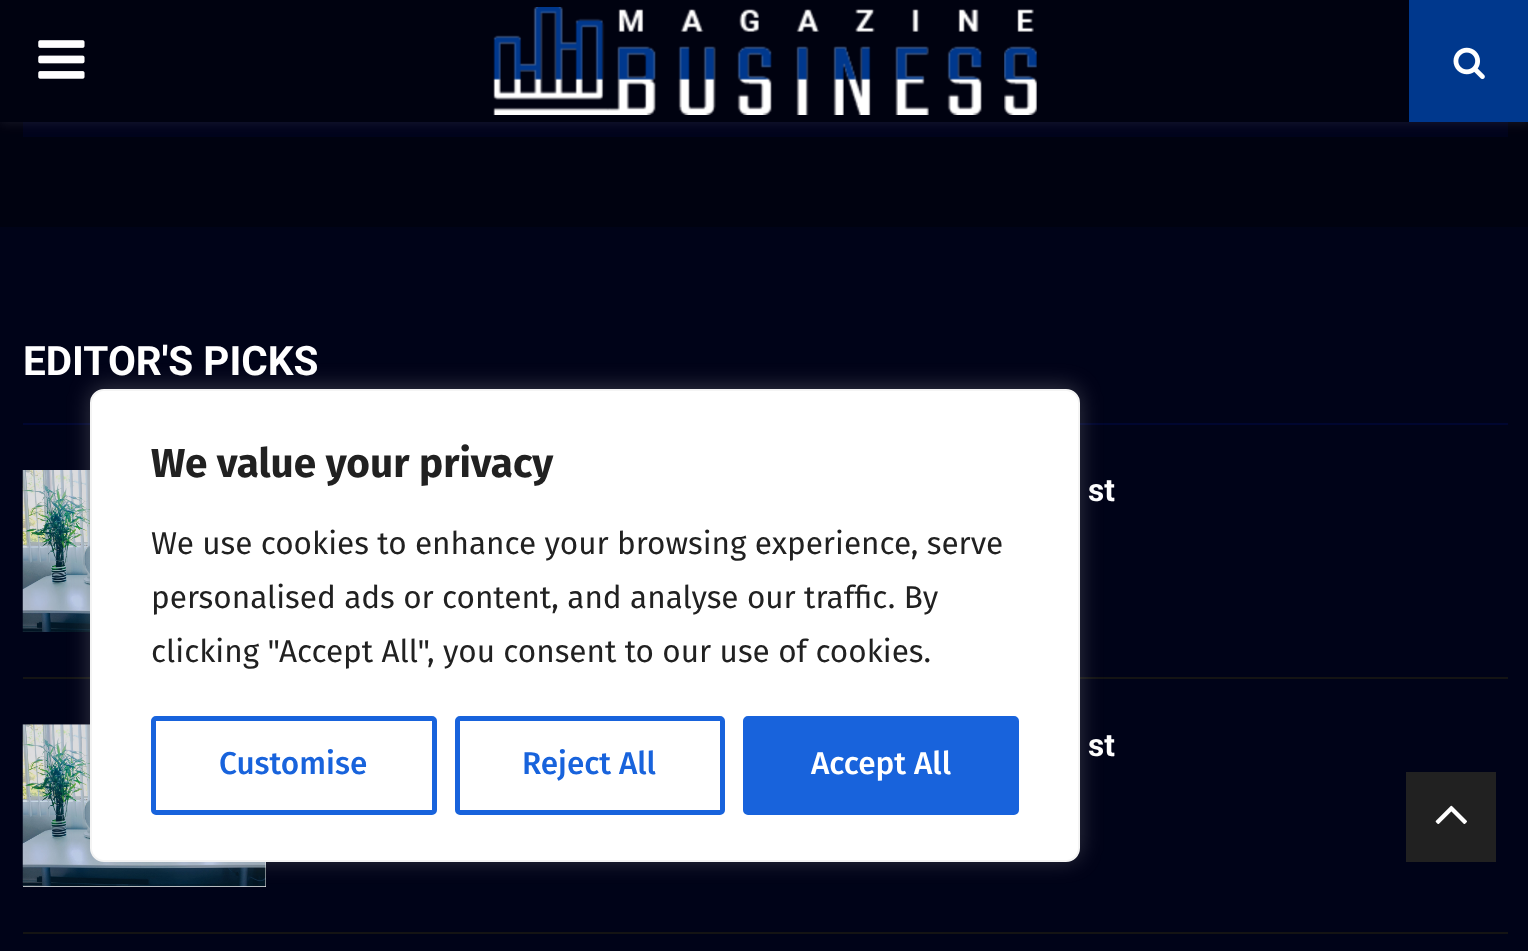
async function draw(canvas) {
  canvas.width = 1528;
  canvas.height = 951;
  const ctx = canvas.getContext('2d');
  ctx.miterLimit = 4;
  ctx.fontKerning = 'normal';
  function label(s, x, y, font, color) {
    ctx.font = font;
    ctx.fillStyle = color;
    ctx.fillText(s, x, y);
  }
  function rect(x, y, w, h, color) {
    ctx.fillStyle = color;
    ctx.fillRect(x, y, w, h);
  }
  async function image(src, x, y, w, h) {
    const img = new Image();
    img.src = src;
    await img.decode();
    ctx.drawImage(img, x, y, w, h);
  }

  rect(0, 0, 1528, 951, '#000210');
  rect(23, 122, 1485, 15, '#00031c');
  ctx.fillStyle = '#ffffff14';
  ctx.filter = 'blur(5.5px)';
  ctx.beginPath();
  ctx.rect(0, 2, 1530, 122);
  ctx.fill();
  ctx.filter = 'none';
  rect(0, 0, 1409, 122, '#000210');
  await image('assets/img1.png', 38, 40, 47, 39);
  await image('assets/img2.png', 493, 7, 544, 108);
  rect(1409, 0, 119, 122, '#00388d');
  await image('assets/img3.png', 1453, 47, 32, 33);
  rect(0, 227, 1528, 724, '#000318');
  rect(23, 423, 1485, 2, '#000630');
  label('EDITOR\'S PICKS', 23, 375, 'bold 40.5px Roboto', '#fff');
  rect(23, 677, 1485, 2, '#141414');
  await image('assets/img4.png', 22, 470, 68, 162);
  label('st', 1088, 501, 'bold 31.5px Roboto', '#fff');
  rect(23, 932, 1485, 2, '#141414');
  rect(23, 862, 243, 25, '#f5f5f5');
  await image('assets/img5.png', 22, 724, 244, 163);
  label('st', 1088, 756, 'bold 31.5px Roboto', '#fff');
  ctx.fillStyle = '#acabab4d';
  ctx.filter = 'blur(11px)';
  ctx.beginPath();
  ctx.roundRect(90, 387, 990, 473, 14);
  ctx.fill();
  ctx.filter = 'none';
  ctx.fillStyle = '#fff';
  ctx.beginPath();
  ctx.roundRect(91, 390, 988, 471, 13);
  ctx.fill();
  ctx.strokeStyle = '#f4f4f4';
  ctx.lineWidth = 2;
  ctx.stroke();
  label('We value your privacy', 151, 477, 'bold 40.5px Fira Sans', '#212121');
  label('We use cookies to enhance your browsing experience, serve', 151, 554, '31.5px Fira Sans', '#212121');
  label('personalised ads or content, and analyse our traffic. By', 151, 608, '31.5px Fira Sans', '#212121');
  label('clicking "Accept All", you consent to our use of cookies.', 151, 662, '31.5px Fira Sans', '#212121');
  ctx.beginPath();
  ctx.roundRect(153.5, 718.5, 281, 94, 2.5);
  ctx.strokeStyle = '#1863dc';
  ctx.lineWidth = 5;
  ctx.stroke();
  label('Customise', 219, 774, '500 31.5px Fira Sans', '#1863dc');
  ctx.beginPath();
  ctx.roundRect(457.5, 718.5, 265, 94, 2.5);
  ctx.stroke();
  label('Reject All', 522, 774, '500 31.5px Fira Sans', '#1863dc');
  ctx.beginPath();
  ctx.roundRect(745.5, 718.5, 271, 94, 2.5);
  ctx.fill();
  ctx.stroke();
  label('Accept All', 811, 774, '500 31.5px Fira Sans', '#fff');
  rect(1406, 772, 90, 90, '#212121');
  await image('assets/img6.png', 1435, 805, 32, 19);
}

draw(document.querySelector('canvas'));
